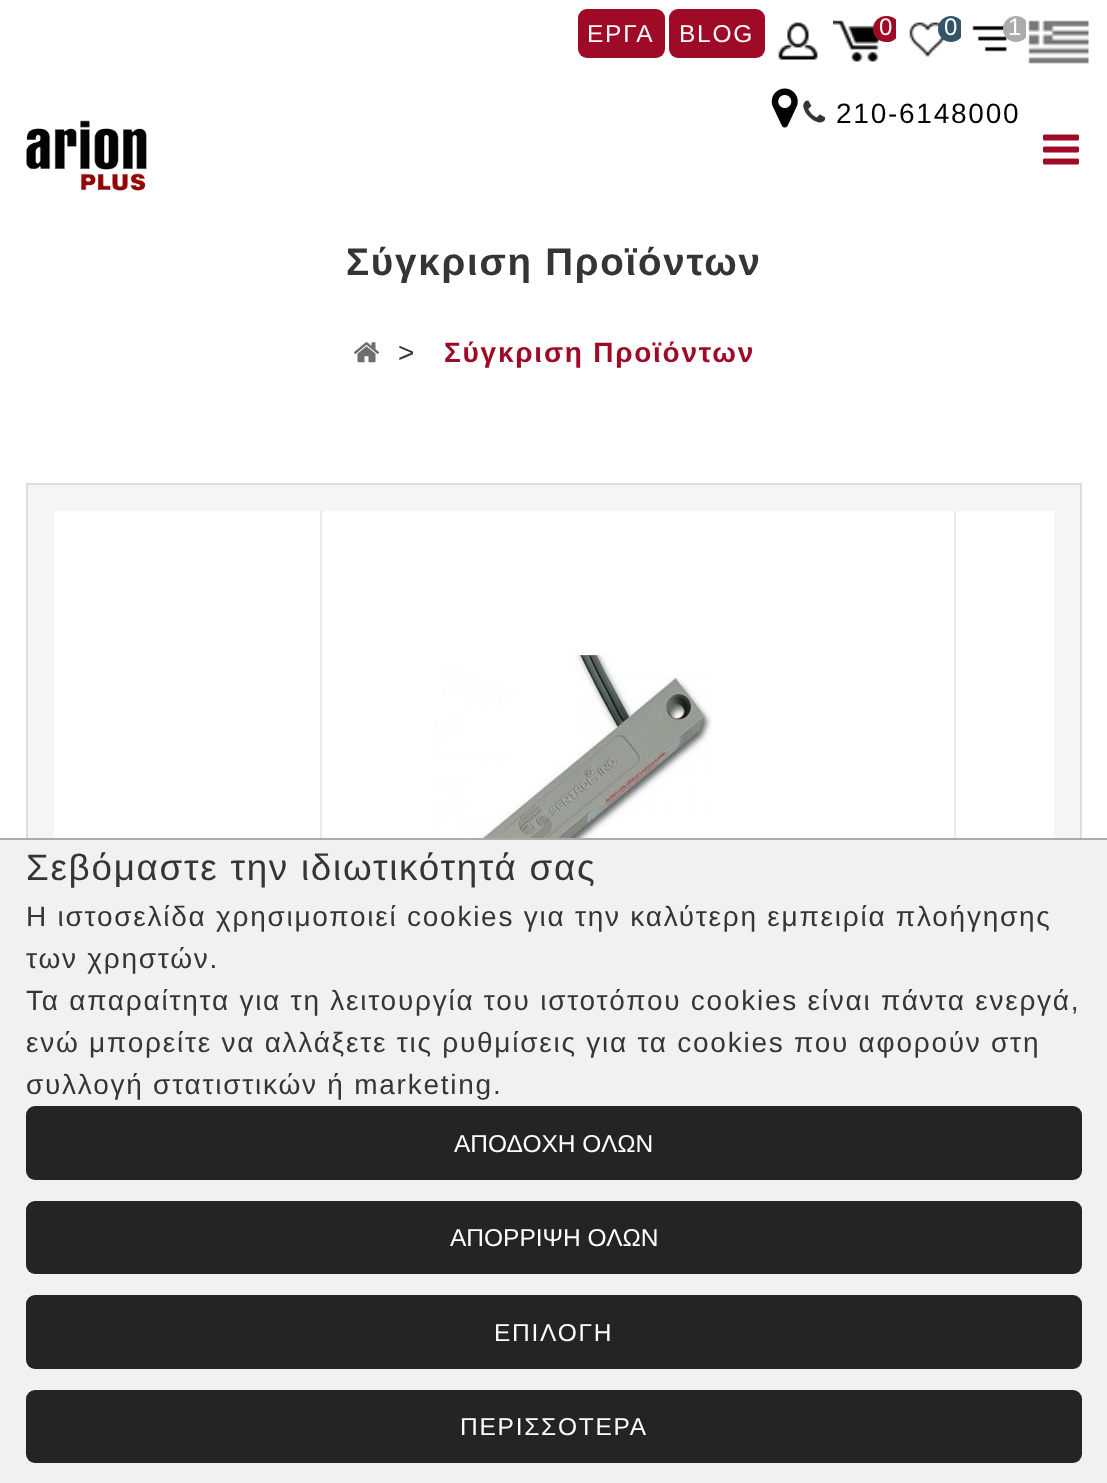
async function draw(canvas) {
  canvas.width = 1107;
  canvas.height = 1483;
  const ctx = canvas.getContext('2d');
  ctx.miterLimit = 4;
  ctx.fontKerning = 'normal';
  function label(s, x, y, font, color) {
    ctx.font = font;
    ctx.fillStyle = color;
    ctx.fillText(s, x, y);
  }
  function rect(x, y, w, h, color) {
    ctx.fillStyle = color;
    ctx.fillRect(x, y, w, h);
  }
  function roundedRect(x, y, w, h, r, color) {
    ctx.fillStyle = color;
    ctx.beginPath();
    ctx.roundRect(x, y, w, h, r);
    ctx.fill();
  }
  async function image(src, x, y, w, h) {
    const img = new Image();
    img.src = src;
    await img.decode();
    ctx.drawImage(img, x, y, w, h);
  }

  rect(0, 0, 1107, 1483, '#fff');
  roundedRect(578, 9, 87, 49, 9, '#9f0a26');
  ctx.letterSpacing = '1.75px';
  label('ΕΡΓΑ', 587, 42, '24.5px Liberation Sans', '#fff');
  roundedRect(669, 9, 96, 49, 9, '#9f0a26');
  label('BLOG', 679, 42, '24.5px Liberation Sans', '#fff');
  await image('assets/img1.png', 778, 22, 40, 38);
  await image('assets/img2.png', 833, 20, 48, 42);
  ctx.save();
  ctx.beginPath();
  ctx.rect(831, 2, 65, 100);
  ctx.clip();
  roundedRect(873, 16, 27, 26, 13, '#9f0a26');
  ctx.restore();
  label('0', 879, 35, '24px Liberation Sans', '#fff');
  await image('assets/img3.png', 909, 22, 35, 35);
  ctx.save();
  ctx.beginPath();
  ctx.rect(896, 2, 65, 100);
  ctx.clip();
  ctx.fillStyle = '#345565';
  ctx.beginPath();
  ctx.arc(951, 29, 13, 0, 2 * Math.PI);
  ctx.fill();
  ctx.restore();
  label('0', 944, 35, '24px Liberation Sans', '#fff');
  await image('assets/img4.png', 972, 25, 35, 27);
  ctx.save();
  ctx.beginPath();
  ctx.rect(961, 2, 65, 100);
  ctx.clip();
  ctx.fillStyle = '#ababab';
  ctx.beginPath();
  ctx.arc(1016, 29, 13, 0, 2 * Math.PI);
  ctx.fill();
  ctx.restore();
  label('1', 1008, 35, '24px Liberation Sans', '#fff');
  await image('assets/img5.png', 1028, 20, 61, 44);
  await image('assets/img6.png', 771, 88, 27, 40);
  await image('assets/img7.png', 803, 100, 23, 23);
  label('210-6148000', 836, 123, '28px Liberation Sans', '#030303');
  await image('assets/img8.png', 1043, 134, 36, 31);
  await image('assets/img9.png', 26, 120, 121, 71);
  label('Σύγκριση Προϊόντων', 346, 275, 'bold 38.5px Liberation Sans', '#353535');
  await image('assets/img10.png', 354, 342, 25, 21);
  label('>', 398, 362, '28px Liberation Sans', '#353535');
  label('Σύγκριση Προϊόντων', 444, 362, 'bold 28px Liberation Sans', '#9f0a26');
  ctx.strokeStyle = '#ddd';
  ctx.lineWidth = 2;
  ctx.strokeRect(27, 484, 1054, 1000);
  rect(54, 485, 1000, 26, '#f5f5f5');
  rect(1054, 485, 26, 353, '#f5f5f5');
  rect(28, 485, 26, 353, '#f5f5f5');
  rect(320, 511, 2, 327, '#ebebeb');
  await image('assets/img11.png', 434, 651, 278, 187);
  rect(954, 511, 2, 327, '#ebebeb');
  rect(0, 840, 1107, 643, '#f1f1f1');
  rect(0, 838, 1107, 2, '#ababab');
  label('Σεβόμαστε την ιδιωτικότητά σας', 26, 880, '36.75px Liberation Sans', '#353535');
  label('Η ιστοσελίδα χρησιμοποιεί cookies για την καλύτερη εμπειρία πλοήγησης', 26, 926, '28px Liberation Sans', '#353535');
  label('των χρηστών.', 26, 968, '28px Liberation Sans', '#353535');
  label('Τα απαραίτητα για τη λειτουργία του ιστοτόπου cookies είναι πάντα ενεργά,', 26, 1010, '28px Liberation Sans', '#353535');
  label('ενώ μπορείτε να αλλάξετε τις ρυθμίσεις για τα cookies που αφορούν στη', 26, 1052, '28px Liberation Sans', '#353535');
  label('συλλογή στατιστικών ή marketing.', 26, 1094, '28px Liberation Sans', '#353535');
  roundedRect(26, 1106, 1056, 74, 9, '#242424');
  ctx.letterSpacing = '0px';
  label('ΑΠΟΔΟΧΗ ΟΛΩΝ', 454, 1152, '24.5px Liberation Sans', '#fff');
  roundedRect(26, 1201, 1056, 73, 9, '#242424');
  label('ΑΠΟΡΡΙΨΗ ΟΛΩΝ', 450, 1246, '24.5px Liberation Sans', '#fff');
  roundedRect(26, 1295, 1056, 74, 9, '#242424');
  ctx.letterSpacing = '1.75px';
  label('ΕΠΙΛΟΓΗ', 494, 1341, '24.5px Liberation Sans', '#fff');
  roundedRect(26, 1390, 1056, 73, 9, '#242424');
  label('ΠΕΡΙΣΣΟΤΕΡΑ', 460, 1435, '24.5px Liberation Sans', '#fff');
}

draw(document.querySelector('canvas'));
